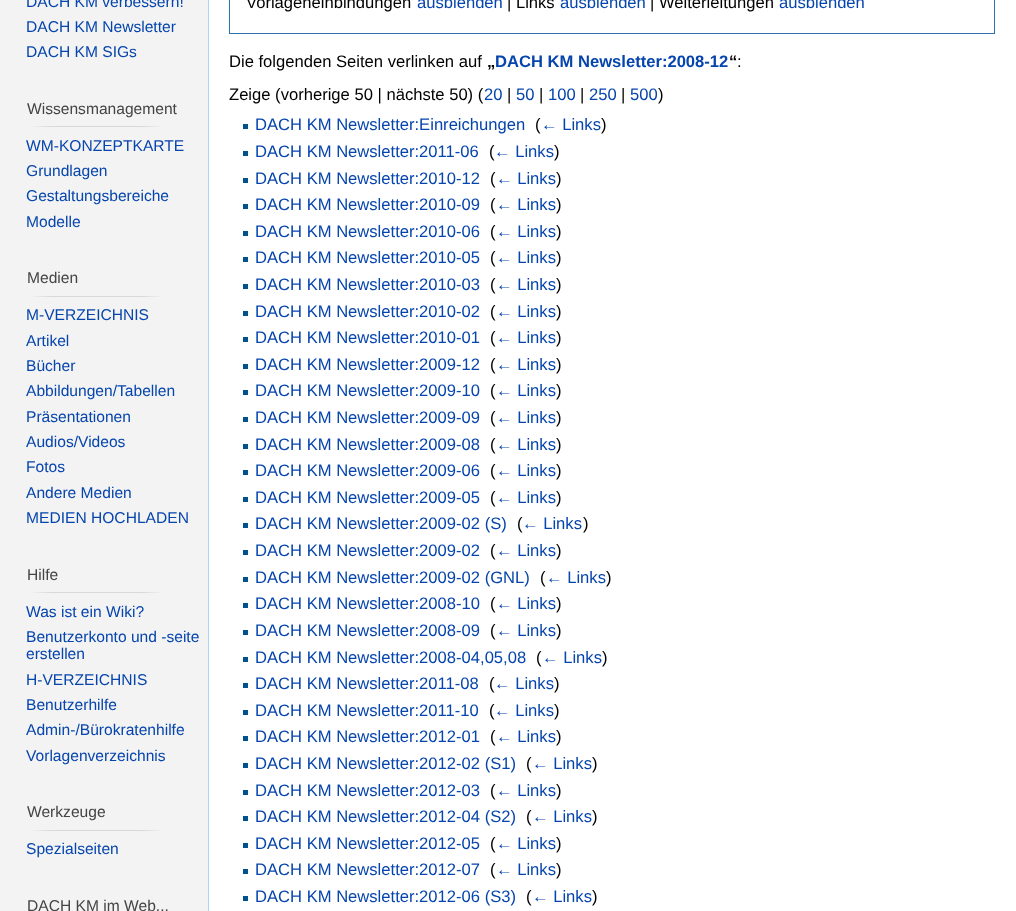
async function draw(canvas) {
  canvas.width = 1016;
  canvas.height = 911;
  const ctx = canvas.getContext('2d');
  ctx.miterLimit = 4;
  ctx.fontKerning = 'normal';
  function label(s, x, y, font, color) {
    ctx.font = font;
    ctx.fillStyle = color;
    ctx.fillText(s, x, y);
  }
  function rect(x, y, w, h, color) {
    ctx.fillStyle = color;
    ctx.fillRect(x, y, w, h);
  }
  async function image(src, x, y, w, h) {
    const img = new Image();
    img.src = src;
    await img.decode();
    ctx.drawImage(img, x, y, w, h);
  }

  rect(0, 0, 1016, 911, '#f3f3f3');
  label('DACH KM verbessern!', 26, 7, '15.6px Liberation Sans', '#0645ad');
  label('DACH KM Newsletter', 26, 32, '15.6px Liberation Sans', '#0645ad');
  label('DACH KM SIGs', 26, 57, '15.6px Liberation Sans', '#0645ad');
  label('Wissensmanagement', 27, 114, '15.6px Liberation Sans', '#444');
  await image('assets/img1.png', 33, 126, 127, 1);
  label('WM-KONZEPTKARTE', 26, 151, '15.6px Liberation Sans', '#0645ad');
  label('Grundlagen', 26, 176, '15.6px Liberation Sans', '#0645ad');
  label('Gestaltungsbereiche', 26, 201, '15.6px Liberation Sans', '#0645ad');
  label('Modelle', 26, 227, '15.6px Liberation Sans', '#0645ad');
  label('Medien', 27, 283, '15.6px Liberation Sans', '#444');
  await image('assets/img1.png', 33, 296, 127, 1);
  label('M-VERZEICHNIS', 26, 320, '15.6px Liberation Sans', '#0645ad');
  label('Artikel', 26, 346, '15.6px Liberation Sans', '#0645ad');
  label('Bücher', 26, 371, '15.6px Liberation Sans', '#0645ad');
  label('Abbildungen/Tabellen', 26, 396, '15.6px Liberation Sans', '#0645ad');
  label('Präsentationen', 26, 422, '15.6px Liberation Sans', '#0645ad');
  label('Audios/Videos', 26, 447, '15.6px Liberation Sans', '#0645ad');
  label('Fotos', 26, 472, '15.6px Liberation Sans', '#0645ad');
  label('Andere Medien', 26, 498, '15.6px Liberation Sans', '#0645ad');
  label('MEDIEN HOCHLADEN', 26, 523, '15.6px Liberation Sans', '#0645ad');
  label('Hilfe', 27, 580, '15.6px Liberation Sans', '#444');
  await image('assets/img1.png', 33, 592, 127, 1);
  label('Was ist ein Wiki?', 26, 617, '15.6px Liberation Sans', '#0645ad');
  label('Benutzerkonto und -seite', 26, 642, '15.6px Liberation Sans', '#0645ad');
  label('erstellen', 26, 659, '15.6px Liberation Sans', '#0645ad');
  label('H-VERZEICHNIS', 26, 685, '15.6px Liberation Sans', '#0645ad');
  label('Benutzerhilfe', 26, 710, '15.6px Liberation Sans', '#0645ad');
  label('Admin-/Bürokratenhilfe', 26, 735, '15.6px Liberation Sans', '#0645ad');
  label('Vorlagenverzeichnis', 26, 761, '15.6px Liberation Sans', '#0645ad');
  label('Werkzeuge', 27, 817, '15.6px Liberation Sans', '#444');
  await image('assets/img1.png', 33, 830, 127, 1);
  label('Spezialseiten', 26, 854, '15.6px Liberation Sans', '#0645ad');
  label('DACH KM im Web...', 27, 911, '15.6px Liberation Sans', '#444');
  rect(209, 0, 807, 911, '#fff');
  rect(208, 0, 1, 911, '#a7d7f9');
  ctx.strokeStyle = '#2f6fab';
  ctx.strokeRect(229.5, -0.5, 765, 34);
  label('Vorlageneinbindungen', 246, 8, '16.6px Liberation Sans', '#000');
  label('ausblenden', 417, 8, '16.6px Liberation Sans', '#0645ad');
  label('| Links', 507, 8, '16.6px Liberation Sans', '#000');
  label('ausblenden', 560, 8, '16.6px Liberation Sans', '#0645ad');
  label('| Weiterleitungen', 650, 8, '16.6px Liberation Sans', '#000');
  label('ausblenden', 779, 8, '16.6px Liberation Sans', '#0645ad');
  label('Die folgenden Seiten verlinken auf', 229, 67, '16.6px Liberation Sans', '#000');
  label('„', 487, 67, 'bold 16.6px Liberation Sans', '#000');
  label('DACH KM Newsletter:2008-12', 495, 67, 'bold 16.6px Liberation Sans', '#0645ad');
  label('“', 729, 67, 'bold 16.6px Liberation Sans', '#000');
  label(':', 737, 67, '16.6px Liberation Sans', '#000');
  label('Zeige (vorherige 50 | nächste 50) (', 229, 100, '16.6px Liberation Sans', '#000');
  label('20', 484, 100, '16.6px Liberation Sans', '#0645ad');
  label('|', 507, 100, '16.6px Liberation Sans', '#000');
  label('50', 516, 100, '16.6px Liberation Sans', '#0645ad');
  label('|', 539, 100, '16.6px Liberation Sans', '#000');
  label('100', 548, 100, '16.6px Liberation Sans', '#0645ad');
  label('|', 580, 100, '16.6px Liberation Sans', '#000');
  label('250', 589, 100, '16.6px Liberation Sans', '#0645ad');
  label('|', 621, 100, '16.6px Liberation Sans', '#000');
  label('500', 630, 100, '16.6px Liberation Sans', '#0645ad');
  label(')', 658, 100, '16.6px Liberation Sans', '#000');
  rect(243, 124, 5, 5, '#00528c');
  label('DACH KM Newsletter:Einreichungen', 255, 130, '16.6px Liberation Sans', '#0645ad');
  label('(', 535, 130, '16.6px Liberation Sans', '#000');
  label('← Links', 541, 130, '16.6px Liberation Sans', '#0645ad');
  label(')', 601, 130, '16.6px Liberation Sans', '#000');
  rect(243, 151, 5, 5, '#00528c');
  label('DACH KM Newsletter:2011-06', 255, 157, '16.6px Liberation Sans', '#0645ad');
  label('(', 489, 157, '16.6px Liberation Sans', '#000');
  label('← Links', 494, 157, '16.6px Liberation Sans', '#0645ad');
  label(')', 554, 157, '16.6px Liberation Sans', '#000');
  rect(243, 178, 5, 5, '#00528c');
  label('DACH KM Newsletter:2010-12', 255, 184, '16.6px Liberation Sans', '#0645ad');
  label('(', 490, 184, '16.6px Liberation Sans', '#000');
  label('← Links', 496, 184, '16.6px Liberation Sans', '#0645ad');
  label(')', 556, 184, '16.6px Liberation Sans', '#000');
  rect(243, 204, 5, 5, '#00528c');
  label('DACH KM Newsletter:2010-09', 255, 210, '16.6px Liberation Sans', '#0645ad');
  label('(', 490, 210, '16.6px Liberation Sans', '#000');
  label('← Links', 496, 210, '16.6px Liberation Sans', '#0645ad');
  label(')', 556, 210, '16.6px Liberation Sans', '#000');
  rect(243, 231, 5, 5, '#00528c');
  label('DACH KM Newsletter:2010-06', 255, 237, '16.6px Liberation Sans', '#0645ad');
  label('(', 490, 237, '16.6px Liberation Sans', '#000');
  label('← Links', 496, 237, '16.6px Liberation Sans', '#0645ad');
  label(')', 556, 237, '16.6px Liberation Sans', '#000');
  rect(243, 257, 5, 5, '#00528c');
  label('DACH KM Newsletter:2010-05', 255, 263, '16.6px Liberation Sans', '#0645ad');
  label('(', 490, 263, '16.6px Liberation Sans', '#000');
  label('← Links', 496, 263, '16.6px Liberation Sans', '#0645ad');
  label(')', 556, 263, '16.6px Liberation Sans', '#000');
  rect(243, 284, 5, 5, '#00528c');
  label('DACH KM Newsletter:2010-03', 255, 290, '16.6px Liberation Sans', '#0645ad');
  label('(', 490, 290, '16.6px Liberation Sans', '#000');
  label('← Links', 496, 290, '16.6px Liberation Sans', '#0645ad');
  label(')', 556, 290, '16.6px Liberation Sans', '#000');
  rect(243, 311, 5, 5, '#00528c');
  label('DACH KM Newsletter:2010-02', 255, 317, '16.6px Liberation Sans', '#0645ad');
  label('(', 490, 317, '16.6px Liberation Sans', '#000');
  label('← Links', 496, 317, '16.6px Liberation Sans', '#0645ad');
  label(')', 556, 317, '16.6px Liberation Sans', '#000');
  rect(243, 337, 5, 5, '#00528c');
  label('DACH KM Newsletter:2010-01', 255, 343, '16.6px Liberation Sans', '#0645ad');
  label('(', 490, 343, '16.6px Liberation Sans', '#000');
  label('← Links', 496, 343, '16.6px Liberation Sans', '#0645ad');
  label(')', 556, 343, '16.6px Liberation Sans', '#000');
  rect(243, 364, 5, 5, '#00528c');
  label('DACH KM Newsletter:2009-12', 255, 370, '16.6px Liberation Sans', '#0645ad');
  label('(', 490, 370, '16.6px Liberation Sans', '#000');
  label('← Links', 496, 370, '16.6px Liberation Sans', '#0645ad');
  label(')', 556, 370, '16.6px Liberation Sans', '#000');
  rect(243, 390, 5, 5, '#00528c');
  label('DACH KM Newsletter:2009-10', 255, 396, '16.6px Liberation Sans', '#0645ad');
  label('(', 490, 396, '16.6px Liberation Sans', '#000');
  label('← Links', 496, 396, '16.6px Liberation Sans', '#0645ad');
  label(')', 556, 396, '16.6px Liberation Sans', '#000');
  rect(243, 417, 5, 5, '#00528c');
  label('DACH KM Newsletter:2009-09', 255, 423, '16.6px Liberation Sans', '#0645ad');
  label('(', 490, 423, '16.6px Liberation Sans', '#000');
  label('← Links', 496, 423, '16.6px Liberation Sans', '#0645ad');
  label(')', 556, 423, '16.6px Liberation Sans', '#000');
  rect(243, 444, 5, 5, '#00528c');
  label('DACH KM Newsletter:2009-08', 255, 450, '16.6px Liberation Sans', '#0645ad');
  label('(', 490, 450, '16.6px Liberation Sans', '#000');
  label('← Links', 496, 450, '16.6px Liberation Sans', '#0645ad');
  label(')', 556, 450, '16.6px Liberation Sans', '#000');
  rect(243, 470, 5, 5, '#00528c');
  label('DACH KM Newsletter:2009-06', 255, 476, '16.6px Liberation Sans', '#0645ad');
  label('(', 490, 476, '16.6px Liberation Sans', '#000');
  label('← Links', 496, 476, '16.6px Liberation Sans', '#0645ad');
  label(')', 556, 476, '16.6px Liberation Sans', '#000');
  rect(243, 497, 5, 5, '#00528c');
  label('DACH KM Newsletter:2009-05', 255, 503, '16.6px Liberation Sans', '#0645ad');
  label('(', 490, 503, '16.6px Liberation Sans', '#000');
  label('← Links', 496, 503, '16.6px Liberation Sans', '#0645ad');
  label(')', 556, 503, '16.6px Liberation Sans', '#000');
  rect(243, 523, 5, 5, '#00528c');
  label('DACH KM Newsletter:2009-02 (S)', 255, 529, '16.6px Liberation Sans', '#0645ad');
  label('(', 517, 529, '16.6px Liberation Sans', '#000');
  label('← Links', 522, 529, '16.6px Liberation Sans', '#0645ad');
  label(')', 583, 529, '16.6px Liberation Sans', '#000');
  rect(243, 550, 5, 5, '#00528c');
  label('DACH KM Newsletter:2009-02', 255, 556, '16.6px Liberation Sans', '#0645ad');
  label('(', 490, 556, '16.6px Liberation Sans', '#000');
  label('← Links', 496, 556, '16.6px Liberation Sans', '#0645ad');
  label(')', 556, 556, '16.6px Liberation Sans', '#000');
  rect(243, 577, 5, 5, '#00528c');
  label('DACH KM Newsletter:2009-02 (GNL)', 255, 583, '16.6px Liberation Sans', '#0645ad');
  label('(', 540, 583, '16.6px Liberation Sans', '#000');
  label('← Links', 546, 583, '16.6px Liberation Sans', '#0645ad');
  label(')', 606, 583, '16.6px Liberation Sans', '#000');
  rect(243, 603, 5, 5, '#00528c');
  label('DACH KM Newsletter:2008-10', 255, 609, '16.6px Liberation Sans', '#0645ad');
  label('(', 490, 609, '16.6px Liberation Sans', '#000');
  label('← Links', 496, 609, '16.6px Liberation Sans', '#0645ad');
  label(')', 556, 609, '16.6px Liberation Sans', '#000');
  rect(243, 630, 5, 5, '#00528c');
  label('DACH KM Newsletter:2008-09', 255, 636, '16.6px Liberation Sans', '#0645ad');
  label('(', 490, 636, '16.6px Liberation Sans', '#000');
  label('← Links', 496, 636, '16.6px Liberation Sans', '#0645ad');
  label(')', 556, 636, '16.6px Liberation Sans', '#000');
  rect(243, 657, 5, 5, '#00528c');
  label('DACH KM Newsletter:2008-04,05,08', 255, 663, '16.6px Liberation Sans', '#0645ad');
  label('(', 536, 663, '16.6px Liberation Sans', '#000');
  label('← Links', 542, 663, '16.6px Liberation Sans', '#0645ad');
  label(')', 602, 663, '16.6px Liberation Sans', '#000');
  rect(243, 683, 5, 5, '#00528c');
  label('DACH KM Newsletter:2011-08', 255, 689, '16.6px Liberation Sans', '#0645ad');
  label('(', 489, 689, '16.6px Liberation Sans', '#000');
  label('← Links', 494, 689, '16.6px Liberation Sans', '#0645ad');
  label(')', 554, 689, '16.6px Liberation Sans', '#000');
  rect(243, 710, 5, 5, '#00528c');
  label('DACH KM Newsletter:2011-10', 255, 716, '16.6px Liberation Sans', '#0645ad');
  label('(', 489, 716, '16.6px Liberation Sans', '#000');
  label('← Links', 494, 716, '16.6px Liberation Sans', '#0645ad');
  label(')', 554, 716, '16.6px Liberation Sans', '#000');
  rect(243, 736, 5, 5, '#00528c');
  label('DACH KM Newsletter:2012-01', 255, 742, '16.6px Liberation Sans', '#0645ad');
  label('(', 490, 742, '16.6px Liberation Sans', '#000');
  label('← Links', 496, 742, '16.6px Liberation Sans', '#0645ad');
  label(')', 556, 742, '16.6px Liberation Sans', '#000');
  rect(243, 763, 5, 5, '#00528c');
  label('DACH KM Newsletter:2012-02 (S1)', 255, 769, '16.6px Liberation Sans', '#0645ad');
  label('(', 526, 769, '16.6px Liberation Sans', '#000');
  label('← Links', 532, 769, '16.6px Liberation Sans', '#0645ad');
  label(')', 592, 769, '16.6px Liberation Sans', '#000');
  rect(243, 790, 5, 5, '#00528c');
  label('DACH KM Newsletter:2012-03', 255, 796, '16.6px Liberation Sans', '#0645ad');
  label('(', 490, 796, '16.6px Liberation Sans', '#000');
  label('← Links', 496, 796, '16.6px Liberation Sans', '#0645ad');
  label(')', 556, 796, '16.6px Liberation Sans', '#000');
  rect(243, 816, 5, 5, '#00528c');
  label('DACH KM Newsletter:2012-04 (S2)', 255, 822, '16.6px Liberation Sans', '#0645ad');
  label('(', 526, 822, '16.6px Liberation Sans', '#000');
  label('← Links', 532, 822, '16.6px Liberation Sans', '#0645ad');
  label(')', 592, 822, '16.6px Liberation Sans', '#000');
  rect(243, 843, 5, 5, '#00528c');
  label('DACH KM Newsletter:2012-05', 255, 849, '16.6px Liberation Sans', '#0645ad');
  label('(', 490, 849, '16.6px Liberation Sans', '#000');
  label('← Links', 496, 849, '16.6px Liberation Sans', '#0645ad');
  label(')', 556, 849, '16.6px Liberation Sans', '#000');
  rect(243, 869, 5, 5, '#00528c');
  label('DACH KM Newsletter:2012-07', 255, 875, '16.6px Liberation Sans', '#0645ad');
  label('(', 490, 875, '16.6px Liberation Sans', '#000');
  label('← Links', 496, 875, '16.6px Liberation Sans', '#0645ad');
  label(')', 556, 875, '16.6px Liberation Sans', '#000');
  rect(243, 896, 5, 5, '#00528c');
  label('DACH KM Newsletter:2012-06 (S3)', 255, 902, '16.6px Liberation Sans', '#0645ad');
  label('(', 526, 902, '16.6px Liberation Sans', '#000');
  label('← Links', 532, 902, '16.6px Liberation Sans', '#0645ad');
  label(')', 592, 902, '16.6px Liberation Sans', '#000');
}

draw(document.querySelector('canvas'));
